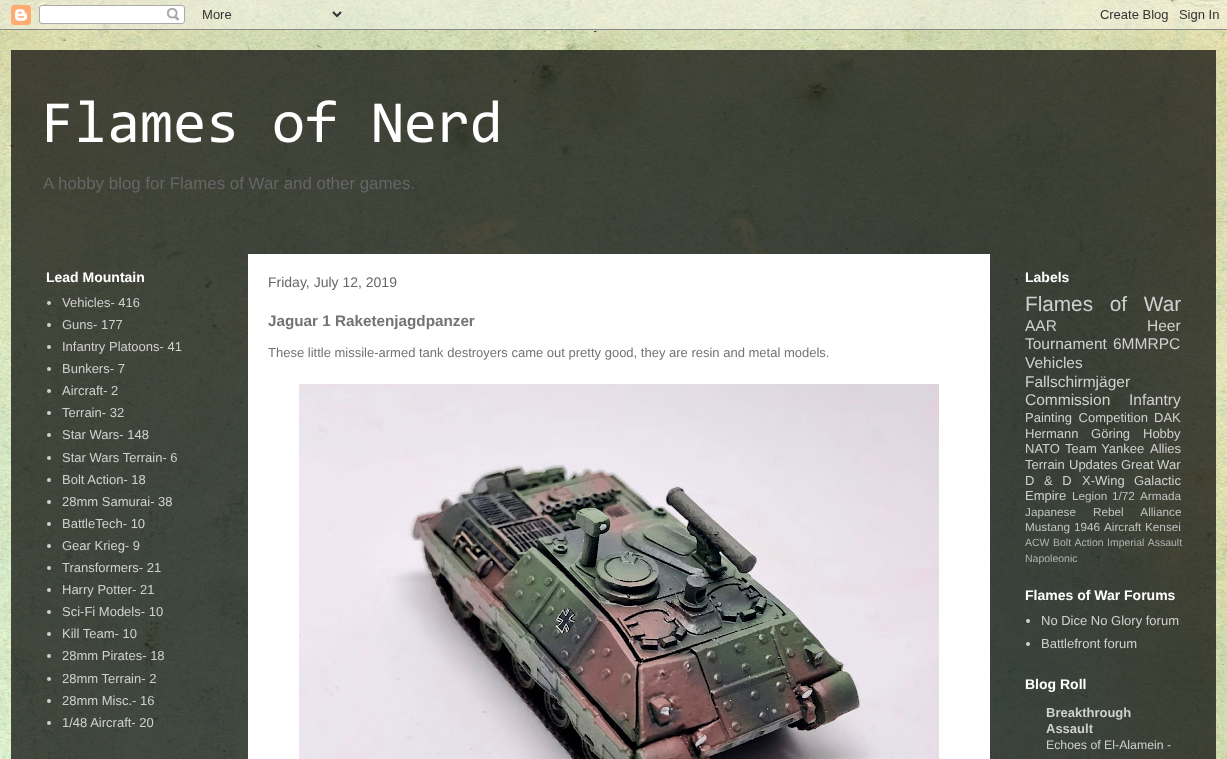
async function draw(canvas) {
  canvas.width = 1227;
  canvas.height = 759;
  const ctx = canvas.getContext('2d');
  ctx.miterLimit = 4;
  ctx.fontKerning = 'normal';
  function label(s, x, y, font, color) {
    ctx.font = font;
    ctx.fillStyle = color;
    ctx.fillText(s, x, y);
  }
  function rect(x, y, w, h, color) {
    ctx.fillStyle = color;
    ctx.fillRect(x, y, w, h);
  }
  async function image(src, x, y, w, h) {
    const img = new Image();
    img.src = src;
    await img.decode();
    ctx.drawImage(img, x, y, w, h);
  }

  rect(0, 0, 1227, 759, '#fff');
  await image('assets/img1.png', 0, 0, 1227, 759);
  await image('assets/img2.png', 0, 0, 1227, 30);
  label('Flames of Nerd', 41, 142, '60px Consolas', '#fff');
  label('A hobby blog for Flames of War and other games.', 43, 189, '16.9px Liberation Sans', '#666');
  label('Lead Mountain', 46, 282, 'bold 14px Liberation Sans', '#fff');
  ctx.fillStyle = '#d0d0d0';
  ctx.beginPath();
  ctx.arc(49, 303, 2, 0, 2 * Math.PI);
  ctx.fill();
  label('Vehicles- 416', 62, 307, '13px Liberation Sans', '#d0d0d0');
  ctx.beginPath();
  ctx.arc(49, 325, 2, 0, 2 * Math.PI);
  ctx.fill();
  label('Guns- 177', 62, 329, '13px Liberation Sans', '#d0d0d0');
  ctx.beginPath();
  ctx.arc(49, 347, 2, 0, 2 * Math.PI);
  ctx.fill();
  label('Infantry Platoons- 41', 62, 351, '13px Liberation Sans', '#d0d0d0');
  ctx.beginPath();
  ctx.arc(49, 369, 2, 0, 2 * Math.PI);
  ctx.fill();
  label('Bunkers- 7', 62, 373, '13px Liberation Sans', '#d0d0d0');
  ctx.beginPath();
  ctx.arc(49, 391, 2, 0, 2 * Math.PI);
  ctx.fill();
  label('Aircraft- 2', 62, 395, '13px Liberation Sans', '#d0d0d0');
  ctx.beginPath();
  ctx.arc(49, 413, 2, 0, 2 * Math.PI);
  ctx.fill();
  label('Terrain- 32', 62, 417, '13px Liberation Sans', '#d0d0d0');
  ctx.beginPath();
  ctx.arc(49, 435, 2, 0, 2 * Math.PI);
  ctx.fill();
  label('Star Wars- 148', 62, 439, '13px Liberation Sans', '#d0d0d0');
  ctx.beginPath();
  ctx.arc(49, 458, 2, 0, 2 * Math.PI);
  ctx.fill();
  label('Star Wars Terrain- 6', 62, 462, '13px Liberation Sans', '#d0d0d0');
  ctx.beginPath();
  ctx.arc(49, 480, 2, 0, 2 * Math.PI);
  ctx.fill();
  label('Bolt Action- 18', 62, 484, '13px Liberation Sans', '#d0d0d0');
  ctx.beginPath();
  ctx.arc(49, 502, 2, 0, 2 * Math.PI);
  ctx.fill();
  label('28mm Samurai- 38', 62, 506, '13px Liberation Sans', '#d0d0d0');
  ctx.beginPath();
  ctx.arc(49, 524, 2, 0, 2 * Math.PI);
  ctx.fill();
  label('BattleTech- 10', 62, 528, '13px Liberation Sans', '#d0d0d0');
  ctx.beginPath();
  ctx.arc(49, 546, 2, 0, 2 * Math.PI);
  ctx.fill();
  label('Gear Krieg- 9', 62, 550, '13px Liberation Sans', '#d0d0d0');
  ctx.beginPath();
  ctx.arc(49, 568, 2, 0, 2 * Math.PI);
  ctx.fill();
  label('Transformers- 21', 62, 572, '13px Liberation Sans', '#d0d0d0');
  ctx.beginPath();
  ctx.arc(49, 590, 2, 0, 2 * Math.PI);
  ctx.fill();
  label('Harry Potter- 21', 62, 594, '13px Liberation Sans', '#d0d0d0');
  ctx.beginPath();
  ctx.arc(49, 612, 2, 0, 2 * Math.PI);
  ctx.fill();
  label('Sci-Fi Models- 10', 62, 616, '13px Liberation Sans', '#d0d0d0');
  ctx.beginPath();
  ctx.arc(49, 634, 2, 0, 2 * Math.PI);
  ctx.fill();
  label('Kill Team- 10', 62, 638, '13px Liberation Sans', '#d0d0d0');
  ctx.beginPath();
  ctx.arc(49, 656, 2, 0, 2 * Math.PI);
  ctx.fill();
  label('28mm Pirates- 18', 62, 660, '13px Liberation Sans', '#d0d0d0');
  ctx.beginPath();
  ctx.arc(49, 679, 2, 0, 2 * Math.PI);
  ctx.fill();
  label('28mm Terrain- 2', 62, 683, '13px Liberation Sans', '#d0d0d0');
  ctx.beginPath();
  ctx.arc(49, 701, 2, 0, 2 * Math.PI);
  ctx.fill();
  label('28mm Misc.- 16', 62, 705, '13px Liberation Sans', '#d0d0d0');
  ctx.beginPath();
  ctx.arc(49, 723, 2, 0, 2 * Math.PI);
  ctx.fill();
  label('1/48 Aircraft- 20', 62, 727, '13px Liberation Sans', '#d0d0d0');
  rect(248, 254, 742, 505, '#fff');
  label('Friday, July 12, 2019', 268, 287, '14px Liberation Sans', '#666');
  label('Jaguar 1 Raketenjagdpanzer', 268, 326, 'bold 15.25px Liberation Sans', '#737373');
  label('These little missile-armed tank destroyers came out pretty good, they are resin and metal models.', 268, 357, '13px Liberation Sans', '#737373');
  await image('assets/img3.png', 299, 384, 640, 375);
  label('Labels', 1025, 282, 'bold 14px Liberation Sans', '#fff');
  ctx.wordSpacing = '11px';
  label('Flames of War', 1025, 311, '20.75px Liberation Sans', '#d0d0d0');
  ctx.wordSpacing = '0px';
  label('AAR', 1025, 331, '15.5px Liberation Sans', '#d0d0d0');
  label('Heer', 1147, 331, '15.5px Liberation Sans', '#d0d0d0');
  label('Tournament', 1025, 349, '15.5px Liberation Sans', '#d0d0d0');
  label('6MMRPC', 1113, 349, '15.5px Liberation Sans', '#d0d0d0');
  label('Vehicles', 1025, 368, '15.5px Liberation Sans', '#d0d0d0');
  label('Fallschirmjäger', 1025, 387, '15.5px Liberation Sans', '#d0d0d0');
  label('Commission', 1025, 405, '15.5px Liberation Sans', '#d0d0d0');
  label('Infantry', 1129, 405, '15.5px Liberation Sans', '#d0d0d0');
  ctx.wordSpacing = '3px';
  label('Painting Competition', 1025, 422, '13px Liberation Sans', '#d0d0d0');
  ctx.wordSpacing = '0px';
  label('DAK', 1154, 422, '13px Liberation Sans', '#d0d0d0');
  ctx.wordSpacing = '9px';
  label('Hermann Göring', 1025, 438, '13px Liberation Sans', '#d0d0d0');
  ctx.wordSpacing = '0px';
  label('Hobby', 1143, 438, '13px Liberation Sans', '#d0d0d0');
  label('NATO', 1025, 453, '13px Liberation Sans', '#d0d0d0');
  ctx.wordSpacing = '1px';
  label('Team Yankee', 1065, 453, '13px Liberation Sans', '#d0d0d0');
  ctx.wordSpacing = '0px';
  label('Allies', 1150, 453, '13px Liberation Sans', '#d0d0d0');
  label('Terrain', 1025, 469, '13px Liberation Sans', '#d0d0d0');
  label('Updates', 1069, 469, '13px Liberation Sans', '#d0d0d0');
  label('Great War', 1121, 469, '13px Liberation Sans', '#d0d0d0');
  ctx.wordSpacing = '6px';
  label('D & D', 1025, 485, '13px Liberation Sans', '#d0d0d0');
  ctx.wordSpacing = '0px';
  label('X-Wing', 1082, 485, '13px Liberation Sans', '#d0d0d0');
  label('Galactic', 1134, 485, '13px Liberation Sans', '#d0d0d0');
  label('Empire', 1025, 500, '13px Liberation Sans', '#d0d0d0');
  label('Legion', 1072, 500, '11.75px Liberation Sans', '#c1c2c1');
  label('1/72', 1112, 500, '11.75px Liberation Sans', '#c1c2c1');
  label('Armada', 1140, 500, '11.75px Liberation Sans', '#c1c2c1');
  label('Japanese', 1025, 516, '11.75px Liberation Sans', '#c1c2c1');
  ctx.wordSpacing = '14px';
  label('Rebel Alliance', 1093, 516, '11.75px Liberation Sans', '#c1c2c1');
  ctx.wordSpacing = '0px';
  label('Mustang', 1025, 531, '11.75px Liberation Sans', '#c1c2c1');
  label('1946', 1074, 531, '11.75px Liberation Sans', '#c1c2c1');
  label('Aircraft', 1104, 531, '11.75px Liberation Sans', '#c1c2c1');
  label('Kensei', 1145, 531, '11.75px Liberation Sans', '#c1c2c1');
  label('ACW', 1025, 546, '10.5px Liberation Sans', '#b2b3b2');
  ctx.wordSpacing = '1px';
  label('Bolt Action', 1053, 546, '10.5px Liberation Sans', '#b2b3b2');
  label('Imperial Assault', 1107, 546, '10.5px Liberation Sans', '#b2b3b2');
  ctx.wordSpacing = '0px';
  label('Napoleonic', 1025, 562, '10.5px Liberation Sans', '#b2b3b2');
  label('Flames of War Forums', 1025, 600, 'bold 14px Liberation Sans', '#fff');
  ctx.fillStyle = '#d0d0d0';
  ctx.beginPath();
  ctx.arc(1028, 621, 2, 0, 2 * Math.PI);
  ctx.fill();
  label('No Dice No Glory forum', 1041, 625, '13px Liberation Sans', '#d0d0d0');
  ctx.beginPath();
  ctx.arc(1028, 644, 2, 0, 2 * Math.PI);
  ctx.fill();
  label('Battlefront forum', 1041, 648, '13px Liberation Sans', '#d0d0d0');
  label('Blog Roll', 1025, 689, 'bold 14px Liberation Sans', '#fff');
  label('Breakthrough', 1046, 717, 'bold 13px Liberation Sans', '#d0d0d0');
  label('Assault', 1046, 733, 'bold 13px Liberation Sans', '#d0d0d0');
  label('Echoes of El-Alamein -', 1046, 749, '12.3px Liberation Sans', '#d0d0d0');
}

draw(document.querySelector('canvas'));
